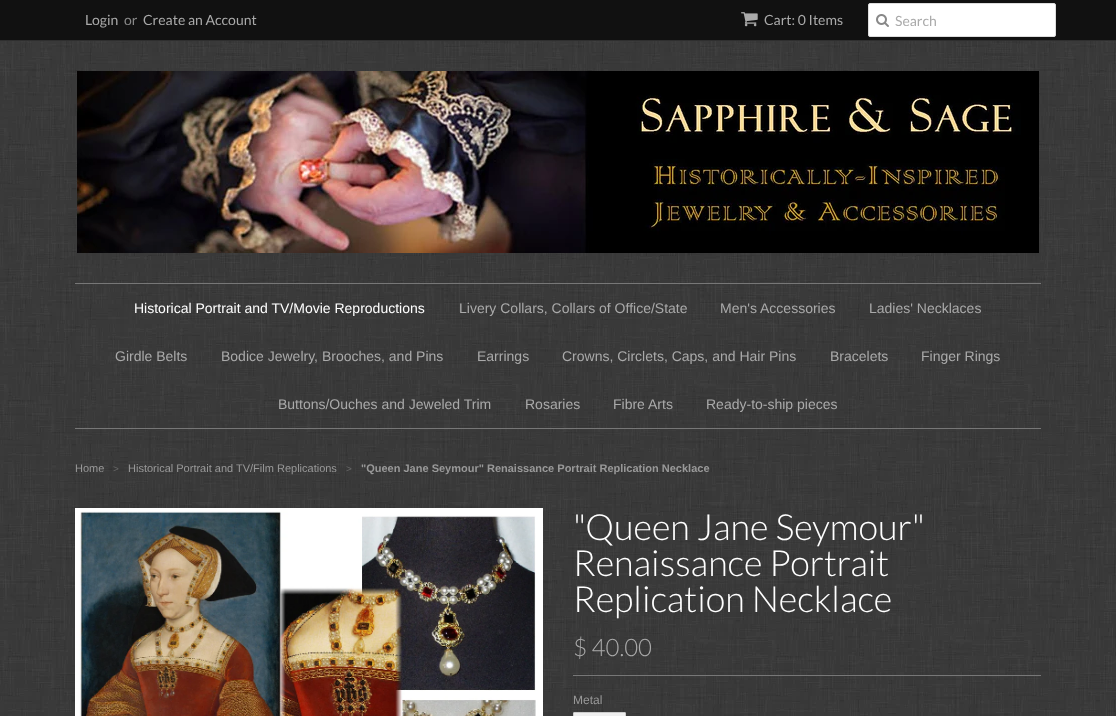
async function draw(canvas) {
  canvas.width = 1116;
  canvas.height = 716;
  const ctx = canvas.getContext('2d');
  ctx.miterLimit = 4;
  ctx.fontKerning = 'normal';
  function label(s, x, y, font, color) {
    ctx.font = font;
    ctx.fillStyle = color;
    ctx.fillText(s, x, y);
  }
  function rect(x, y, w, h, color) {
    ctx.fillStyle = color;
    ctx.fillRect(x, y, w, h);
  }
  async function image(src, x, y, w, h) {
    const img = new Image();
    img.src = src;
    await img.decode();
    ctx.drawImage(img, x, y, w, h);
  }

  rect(0, 0, 1116, 716, '#fff');
  await image('assets/img1.png', 0, 41, 1116, 675);
  rect(0, 0, 1116, 40, '#111');
  rect(0, 40, 1116, 1, '#2f2f2f');
  label('Login', 85, 25, '14px Lato', '#aaa');
  label('or', 124, 25, '14px Lato', '#888');
  label('Create an Account', 143, 25, '14px Lato', '#aaa');
  await image('assets/img2.png', 741, 12, 17, 15);
  label('Cart: 0 Items', 764, 25, '14px Lato', '#aaa');
  ctx.fillStyle = '#fff';
  ctx.beginPath();
  ctx.roundRect(868.5, 3.5, 187, 33, 1.5);
  ctx.fill();
  ctx.strokeStyle = '#ddd';
  ctx.stroke();
  await image('assets/img3.png', 876, 14, 13, 13);
  label('Search', 895, 26, '14px Lato', '#aaa');
  await image('assets/img4.png', 77, 71, 962, 182);
  rect(75, 283, 966, 1, '#777');
  rect(75, 428, 966, 1, '#777');
  label('Historical Portrait and TV/Movie Reproductions', 134, 313, '14px Liberation Sans', '#fff');
  label('Livery Collars, Collars of Office/State', 459, 313, '14px Liberation Sans', '#aaa');
  label('Men\'s Accessories', 720, 313, '14px Liberation Sans', '#aaa');
  label('Ladies\' Necklaces', 869, 313, '14px Liberation Sans', '#aaa');
  label('Girdle Belts', 115, 361, '14px Liberation Sans', '#aaa');
  label('Bodice Jewelry, Brooches, and Pins', 221, 361, '14px Liberation Sans', '#aaa');
  label('Earrings', 477, 361, '14px Liberation Sans', '#aaa');
  label('Crowns, Circlets, Caps, and Hair Pins', 562, 361, '14px Liberation Sans', '#aaa');
  label('Bracelets', 830, 361, '14px Liberation Sans', '#aaa');
  label('Finger Rings', 921, 361, '14px Liberation Sans', '#aaa');
  label('Buttons/Ouches and Jeweled Trim', 278, 409, '14px Liberation Sans', '#aaa');
  label('Rosaries', 525, 409, '14px Liberation Sans', '#aaa');
  label('Fibre Arts', 613, 409, '14px Liberation Sans', '#aaa');
  label('Ready-to-ship pieces', 706, 409, '14px Liberation Sans', '#aaa');
  label('Home', 75, 472, '11px Liberation Sans', '#999');
  label('>', 113, 472, '10px Liberation Sans', '#696969');
  label('Historical Portrait and TV/Film Replications', 128, 472, '11px Liberation Sans', '#999');
  label('>', 346, 472, '10px Liberation Sans', '#696969');
  label('"Queen Jane Seymour" Renaissance Portrait Replication Necklace', 361, 472, 'bold 11px Liberation Sans', '#999');
  await image('assets/img5.png', 75, 508, 468, 208);
  label('"Queen Jane Seymour"', 573, 540, '300 36px Lato', '#fff');
  label('Renaissance Portrait', 573, 576, '300 36px Lato', '#fff');
  label('Replication Necklace', 573, 612, '300 36px Lato', '#fff');
  label('$ 40.00', 573, 656, '300 24px Lato', '#aaa');
  rect(573, 675, 468, 1, '#777');
  label('Metal', 573, 704, '12px Liberation Sans', '#999');
  ctx.fillStyle = '#efefef';
  ctx.beginPath();
  ctx.roundRect(573.5, 712.5, 52, 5, 0.5);
  ctx.fill();
  ctx.strokeStyle = '#ccc';
  ctx.stroke();
}

draw(document.querySelector('canvas'));
